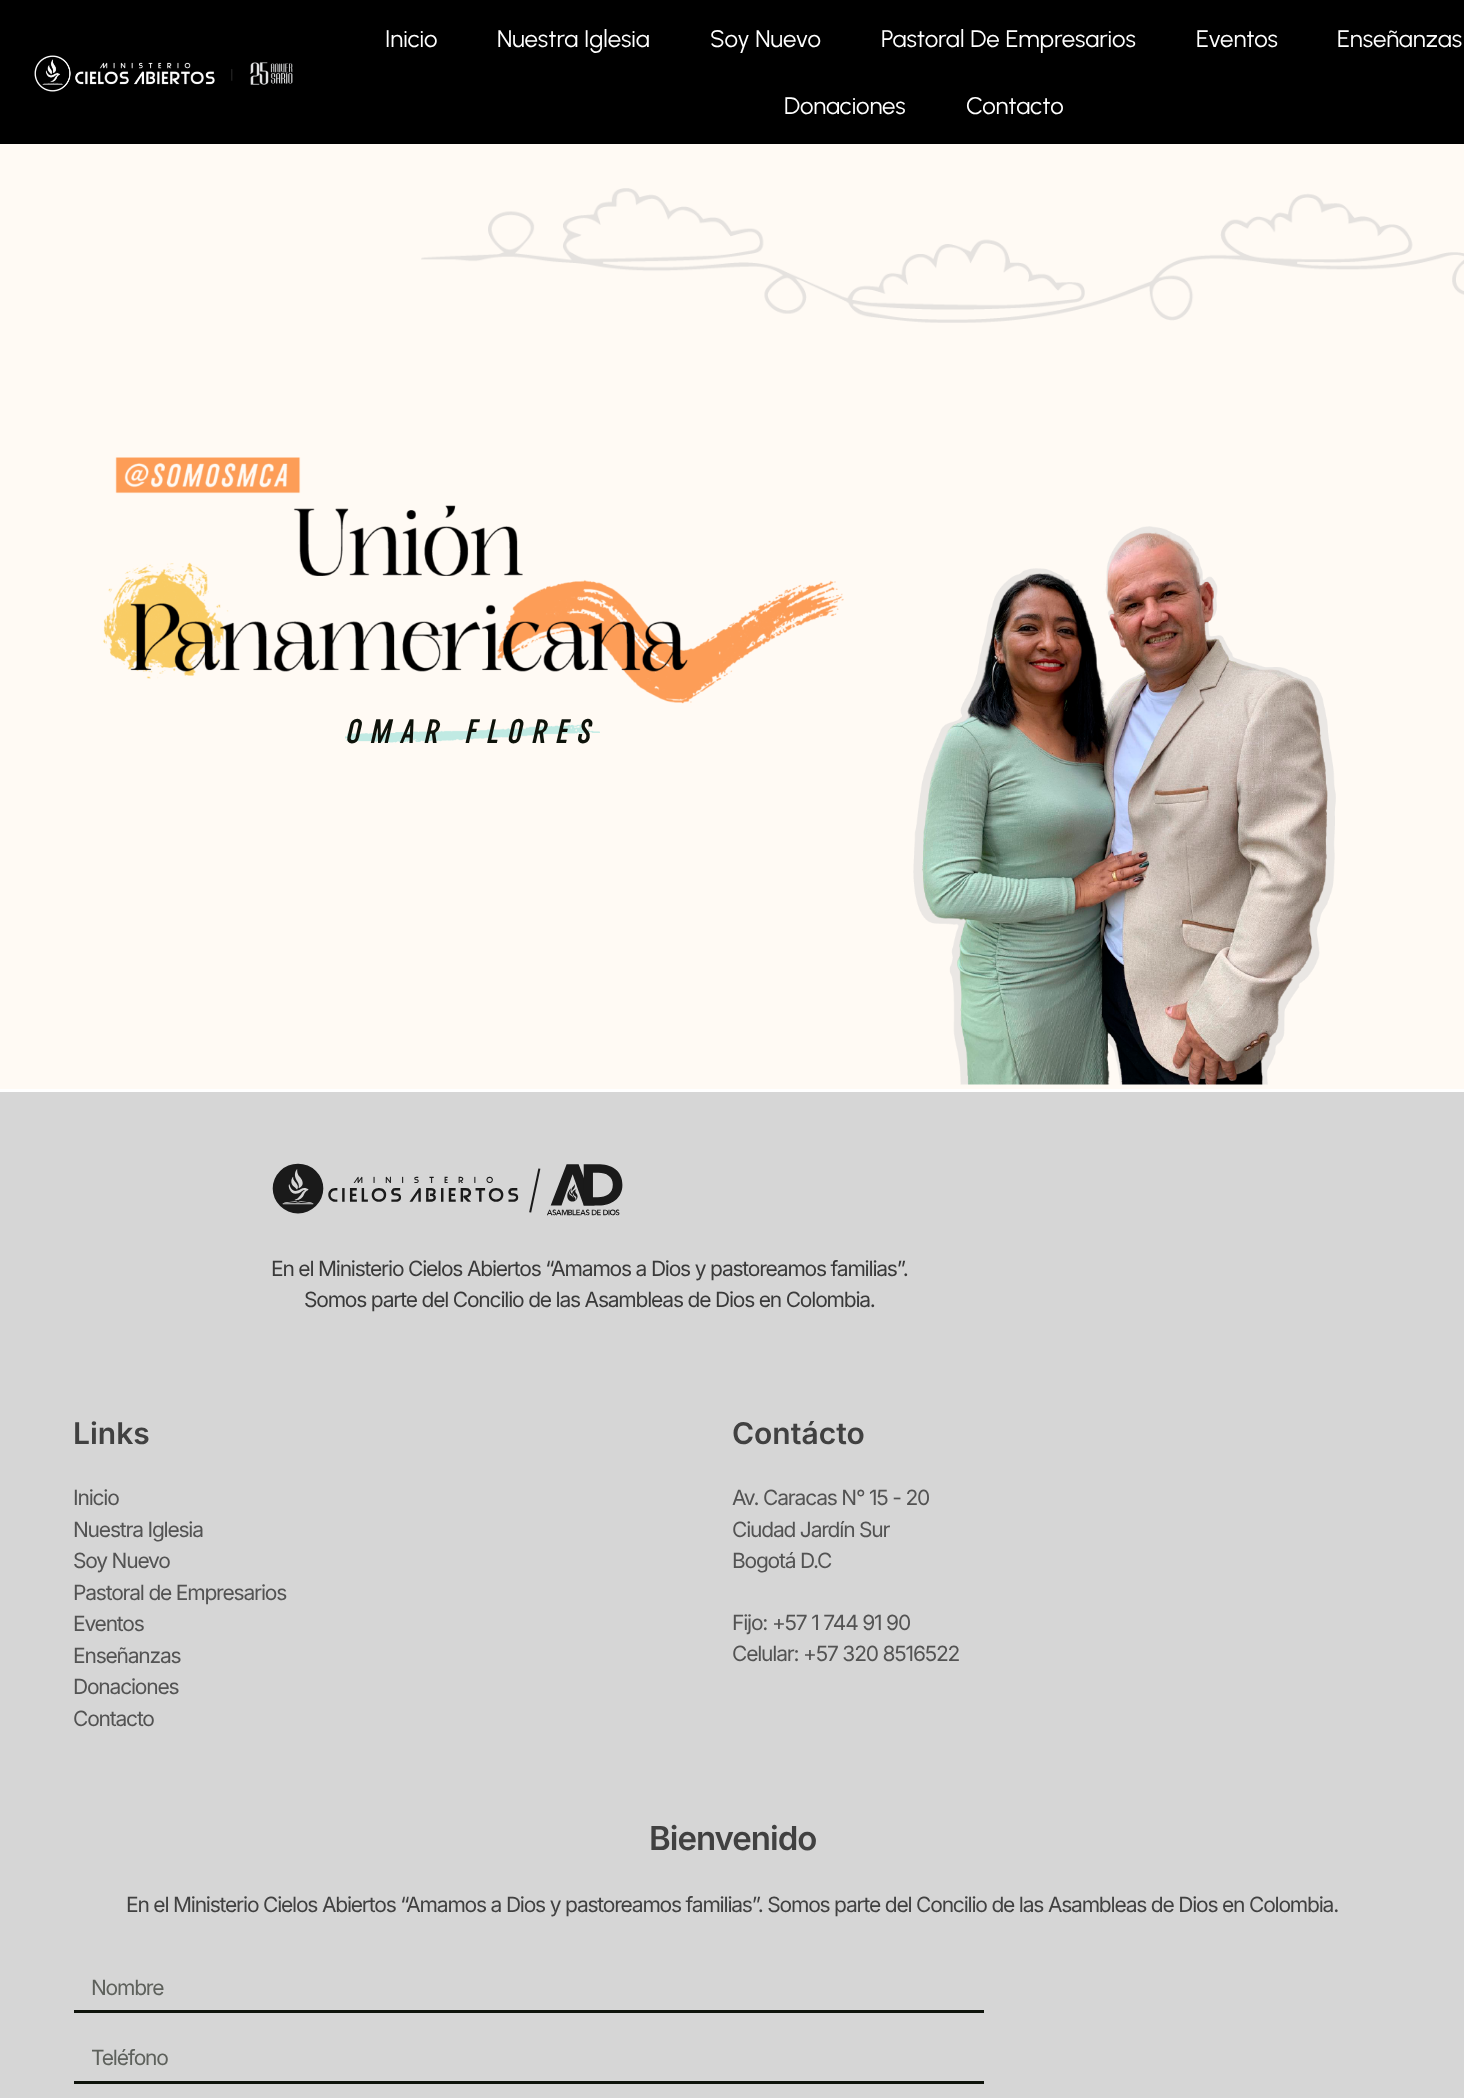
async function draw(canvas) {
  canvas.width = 1464;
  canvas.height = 2098;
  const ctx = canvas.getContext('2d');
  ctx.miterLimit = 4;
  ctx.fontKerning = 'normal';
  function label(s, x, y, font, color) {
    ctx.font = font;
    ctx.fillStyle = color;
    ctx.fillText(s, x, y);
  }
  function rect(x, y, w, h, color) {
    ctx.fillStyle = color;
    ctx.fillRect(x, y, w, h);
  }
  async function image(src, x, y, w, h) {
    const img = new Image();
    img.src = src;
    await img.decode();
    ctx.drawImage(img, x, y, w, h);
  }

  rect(0, 0, 1464, 2098, '#fffaf4');
  rect(0, 0, 1464, 144, '#000');
  await image('assets/img1.png', 34, 55, 259, 37);
  label('Inicio', 385, 47, '24px Urbanist', '#fff');
  label('Nuestra Iglesia', 497, 47, '24px Urbanist', '#fff');
  label('Soy Nuevo', 710, 47, '24px Urbanist', '#fff');
  label('Pastoral De Empresarios', 881, 47, '24px Urbanist', '#fff');
  label('Eventos', 1196, 47, '24px Urbanist', '#fff');
  label('Enseñanzas', 1337, 47, '24px Urbanist', '#fff');
  label('Donaciones', 784, 114, '24px Urbanist', '#fff');
  label('Contacto', 966, 114, '24px Urbanist', '#fff');
  await image('assets/img2.png', 421, 188, 1043, 135);
  await image('assets/img3.png', 103, 457, 741, 247);
  await image('assets/img4.png', 345, 724, 255, 19);
  ctx.letterSpacing = '10.25px';
  label('OMAR FLORES', 346, 743, 'italic 500 34.5px "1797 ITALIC"', '#0e130b');
  await image('assets/img5.png', 913, 526, 423, 559);
  rect(0, 1092, 1464, 1006, '#d6d6d6');
  rect(0, 1089, 1464, 3, '#fff');
  await image('assets/img6.png', 272, 1163, 351, 53);
  ctx.letterSpacing = '-1.2px';
  label('En el Ministerio Cielos Abiertos “Amamos a Dios y pastoreamos familias”.', 271, 1276, '21px Inter', '#3a3a3a');
  label('Somos parte del Concilio de las Asambleas de Dios en Colombia.', 304, 1307, '21px Inter', '#3a3a3a');
  ctx.letterSpacing = '0px';
  label('Links', 73, 1444, '600 30px Inter', '#414141');
  ctx.letterSpacing = '-1.2px';
  label('Inicio', 73, 1505, '21px Inter', '#535353');
  label('Nuestra Iglesia', 73, 1537, '21px Inter', '#535353');
  label('Soy Nuevo', 73, 1568, '21px Inter', '#535353');
  label('Pastoral de Empresarios', 73, 1600, '21px Inter', '#535353');
  label('Eventos', 73, 1631, '21px Inter', '#535353');
  label('Enseñanzas', 73, 1663, '21px Inter', '#535353');
  label('Donaciones', 73, 1694, '21px Inter', '#535353');
  label('Contacto', 73, 1726, '21px Inter', '#535353');
  ctx.letterSpacing = '0px';
  label('Contácto', 732, 1444, '600 30px Inter', '#414141');
  ctx.letterSpacing = '-1.2px';
  label('Av. Caracas N° 15 - 20', 732, 1505, '21px Inter', '#535353');
  label('Ciudad Jardín Sur', 732, 1537, '21px Inter', '#535353');
  label('Bogotá D.C', 732, 1568, '21px Inter', '#535353');
  label('Fijo: +57 1 744 91 90', 732, 1630, '21px Inter', '#535353');
  label('Celular: +57 320 8516522', 732, 1661, '21px Inter', '#535353');
  ctx.letterSpacing = '-1px';
  label('Bienvenido', 649, 1850, '600 33px Inter', '#414141');
  ctx.letterSpacing = '-1.2px';
  label('En el Ministerio Cielos Abiertos “Amamos a Dios y pastoreamos familias”. Somos parte del Concilio de las Asambleas de Dios en Colombia.', 126, 1912, '21px Inter', '#414141');
  rect(74, 2010, 910, 3, '#0e130b');
  label('Nombre', 91, 1995, '21px Inter', '#5e615c');
  rect(74, 2081, 910, 3, '#0e130b');
  label('Teléfono', 91, 2065, '21px Inter', '#5e615c');
}

draw(document.querySelector('canvas'));
